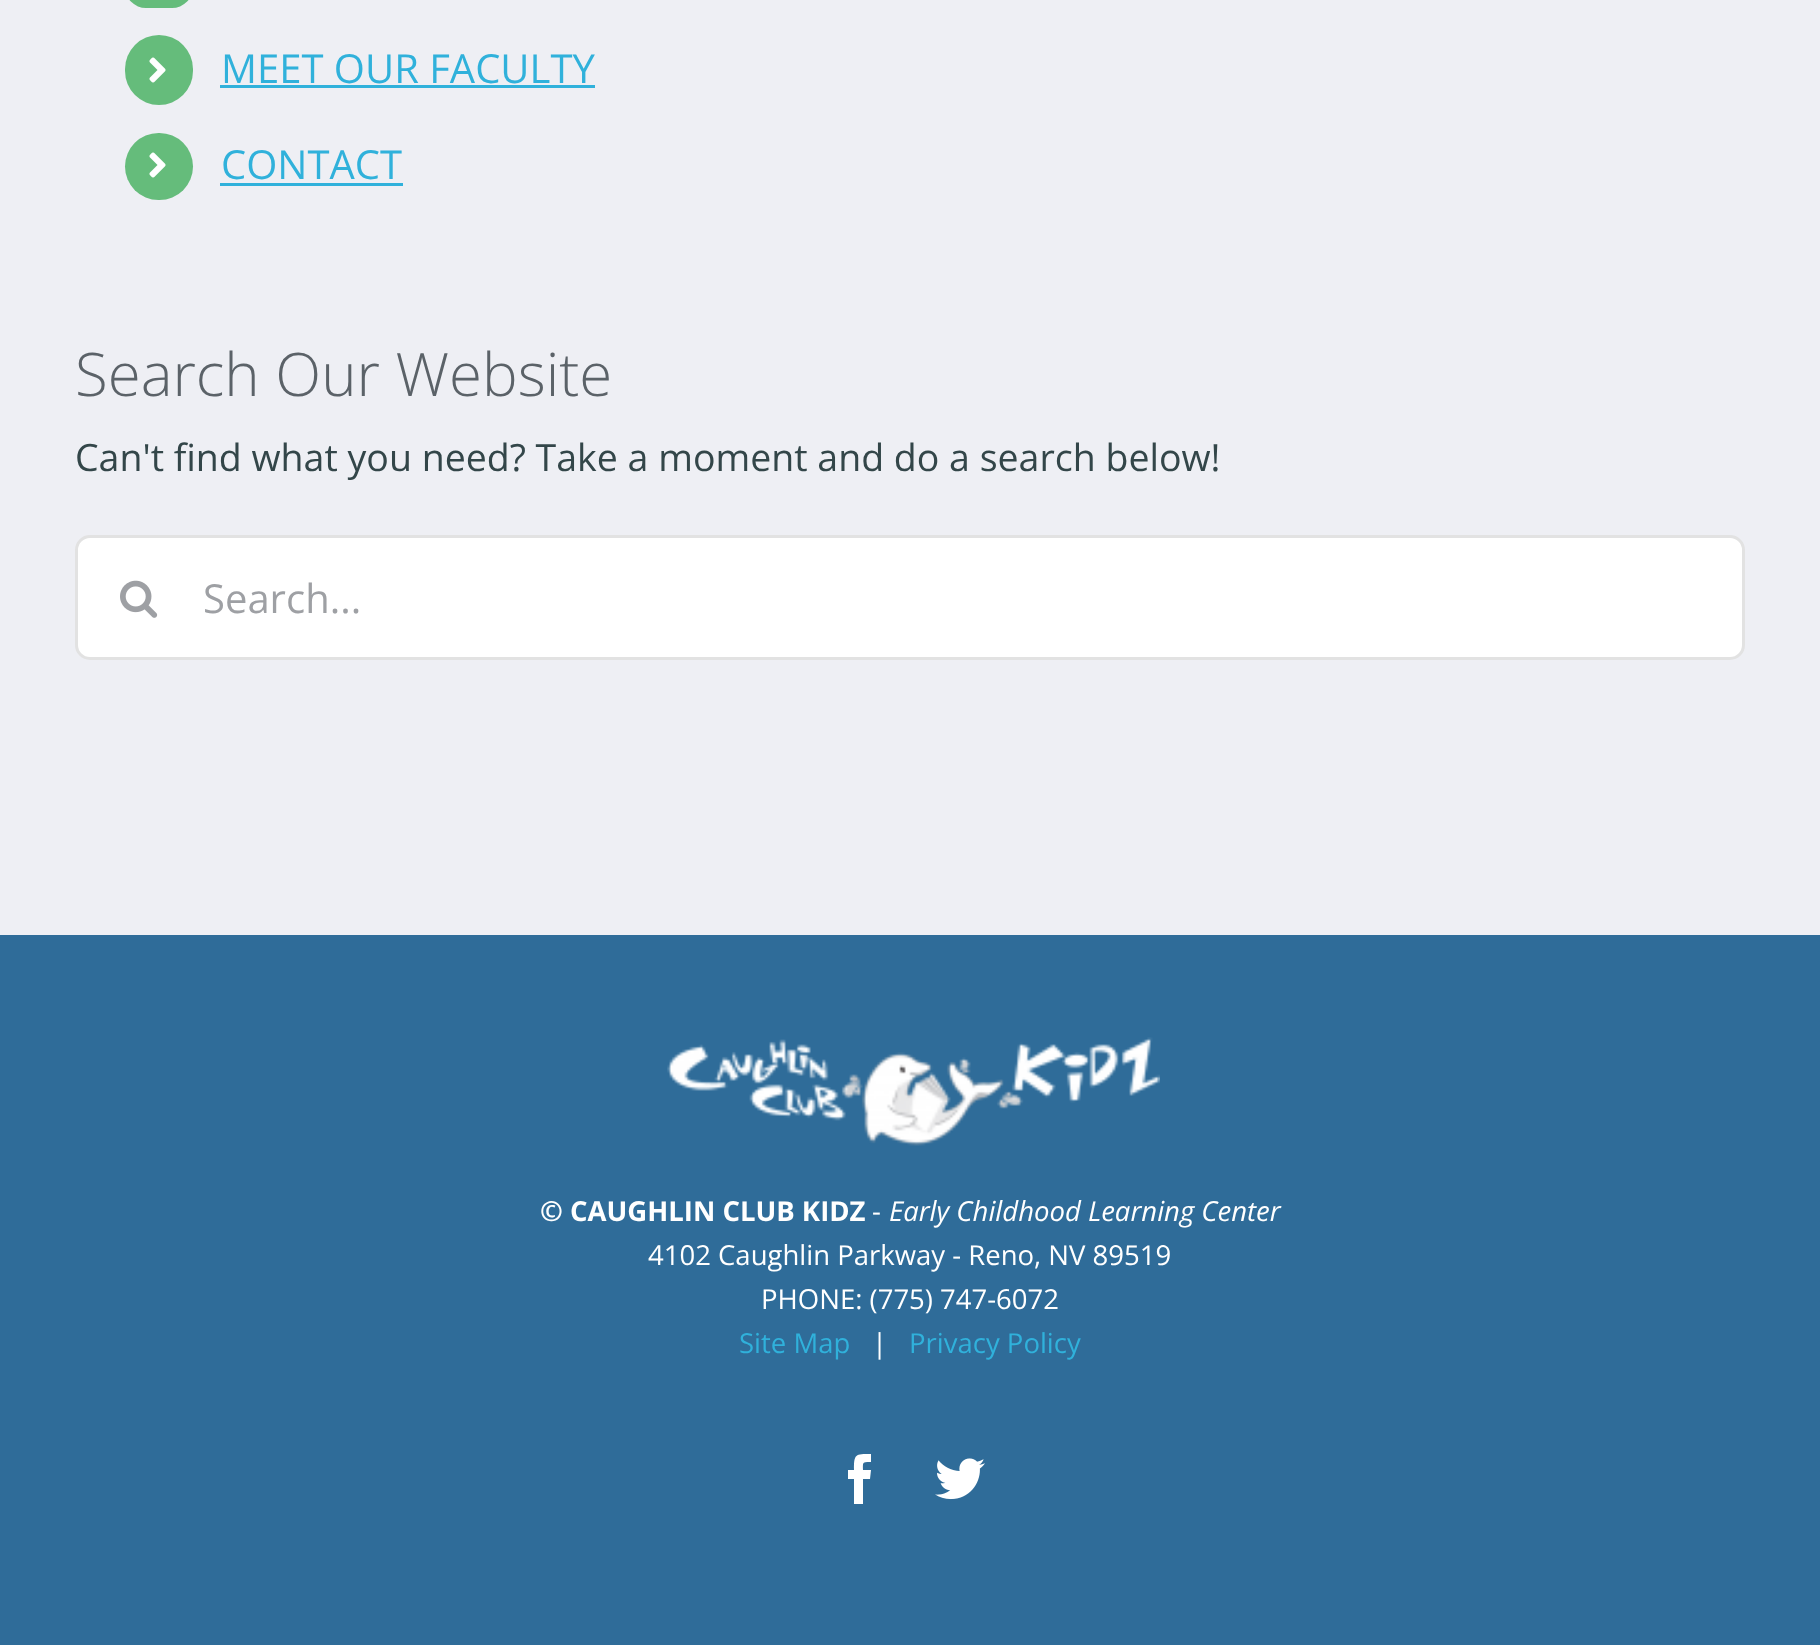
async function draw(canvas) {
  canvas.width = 1820;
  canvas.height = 1645;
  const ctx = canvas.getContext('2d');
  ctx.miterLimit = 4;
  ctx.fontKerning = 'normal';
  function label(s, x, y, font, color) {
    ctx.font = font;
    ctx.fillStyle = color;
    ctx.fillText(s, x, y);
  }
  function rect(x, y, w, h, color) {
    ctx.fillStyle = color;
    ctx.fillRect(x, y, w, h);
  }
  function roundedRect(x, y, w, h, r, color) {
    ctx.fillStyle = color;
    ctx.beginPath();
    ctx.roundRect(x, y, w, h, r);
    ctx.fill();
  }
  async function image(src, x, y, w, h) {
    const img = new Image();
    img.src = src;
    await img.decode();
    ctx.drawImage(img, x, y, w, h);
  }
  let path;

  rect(0, 0, 1820, 1645, '#eeeff4');
  roundedRect(125, -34, 68, 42, 34, '#65bc7b');
  roundedRect(125, 35, 68, 70, 34, '#65bc7b');
  await image('assets/img1.png', 149, 57, 17, 26);
  label('MEET OUR FACULTY', 221, 83, '40px Open Sans', '#30b1db');
  rect(220, 85, 375, 3, '#30b1db');
  roundedRect(125, 133, 68, 67, 33.5, '#65bc7b');
  await image('assets/img1.png', 149, 152, 17, 26);
  label('CONTACT', 221, 179, '40px Open Sans', '#30b1db');
  rect(220, 183, 183, 3, '#30b1db');
  label('Search Our Website', 75, 396, '300 60px Open Sans', '#5b6268');
  label('Can\'t find what you need? Take a moment and do a search below!', 75, 471, '37.5px Open Sans', '#334649');
  ctx.fillStyle = '#fff';
  ctx.beginPath();
  ctx.roundRect(76.5, 536.5, 1667, 122, 13.5);
  ctx.fill();
  ctx.strokeStyle = '#e2e2e2';
  ctx.lineWidth = 3;
  ctx.stroke();
  await image('assets/img2.png', 120, 580, 38, 38);
  label('Search...', 203, 613, '40px Open Sans', '#9ea0a4');
  rect(0, 935, 1820, 710, '#2f6c99');
  await image('assets/img3.png', 667, 1037, 493, 109);
  label('© CAUGHLIN CLUB KIDZ', 540, 1221, 'bold 27.5px Open Sans', '#fff');
  label('-', 872, 1221, '27.5px Open Sans', '#fff');
  label('Early Childhood Learning Center', 889, 1221, 'italic 27.5px Open Sans', '#fff');
  label('4102 Caughlin Parkway - Reno, NV 89519', 648, 1265, '27.5px Open Sans', '#fff');
  label('PHONE: (775) 747-6072', 761, 1309, '27.5px Open Sans', '#fff');
  label('Site Map', 739, 1353, '27.5px Open Sans', '#30b1db');
  label('|', 872, 1353, '27.5px Open Sans', '#fff');
  label('Privacy Policy', 909, 1353, '27.5px Open Sans', '#30b1db');
  ctx.fillStyle = '#fff';
  path = new Path2D('M863 1504H854V1479H848V1470H854C854 1454 855 1454 871 1454V1462C862 1462 863 1462 863 1470H871L870 1479H863Z');
  ctx.fill(path);
  await image('assets/img4.png', 935, 1458, 50, 42);
}

draw(document.querySelector('canvas'));
